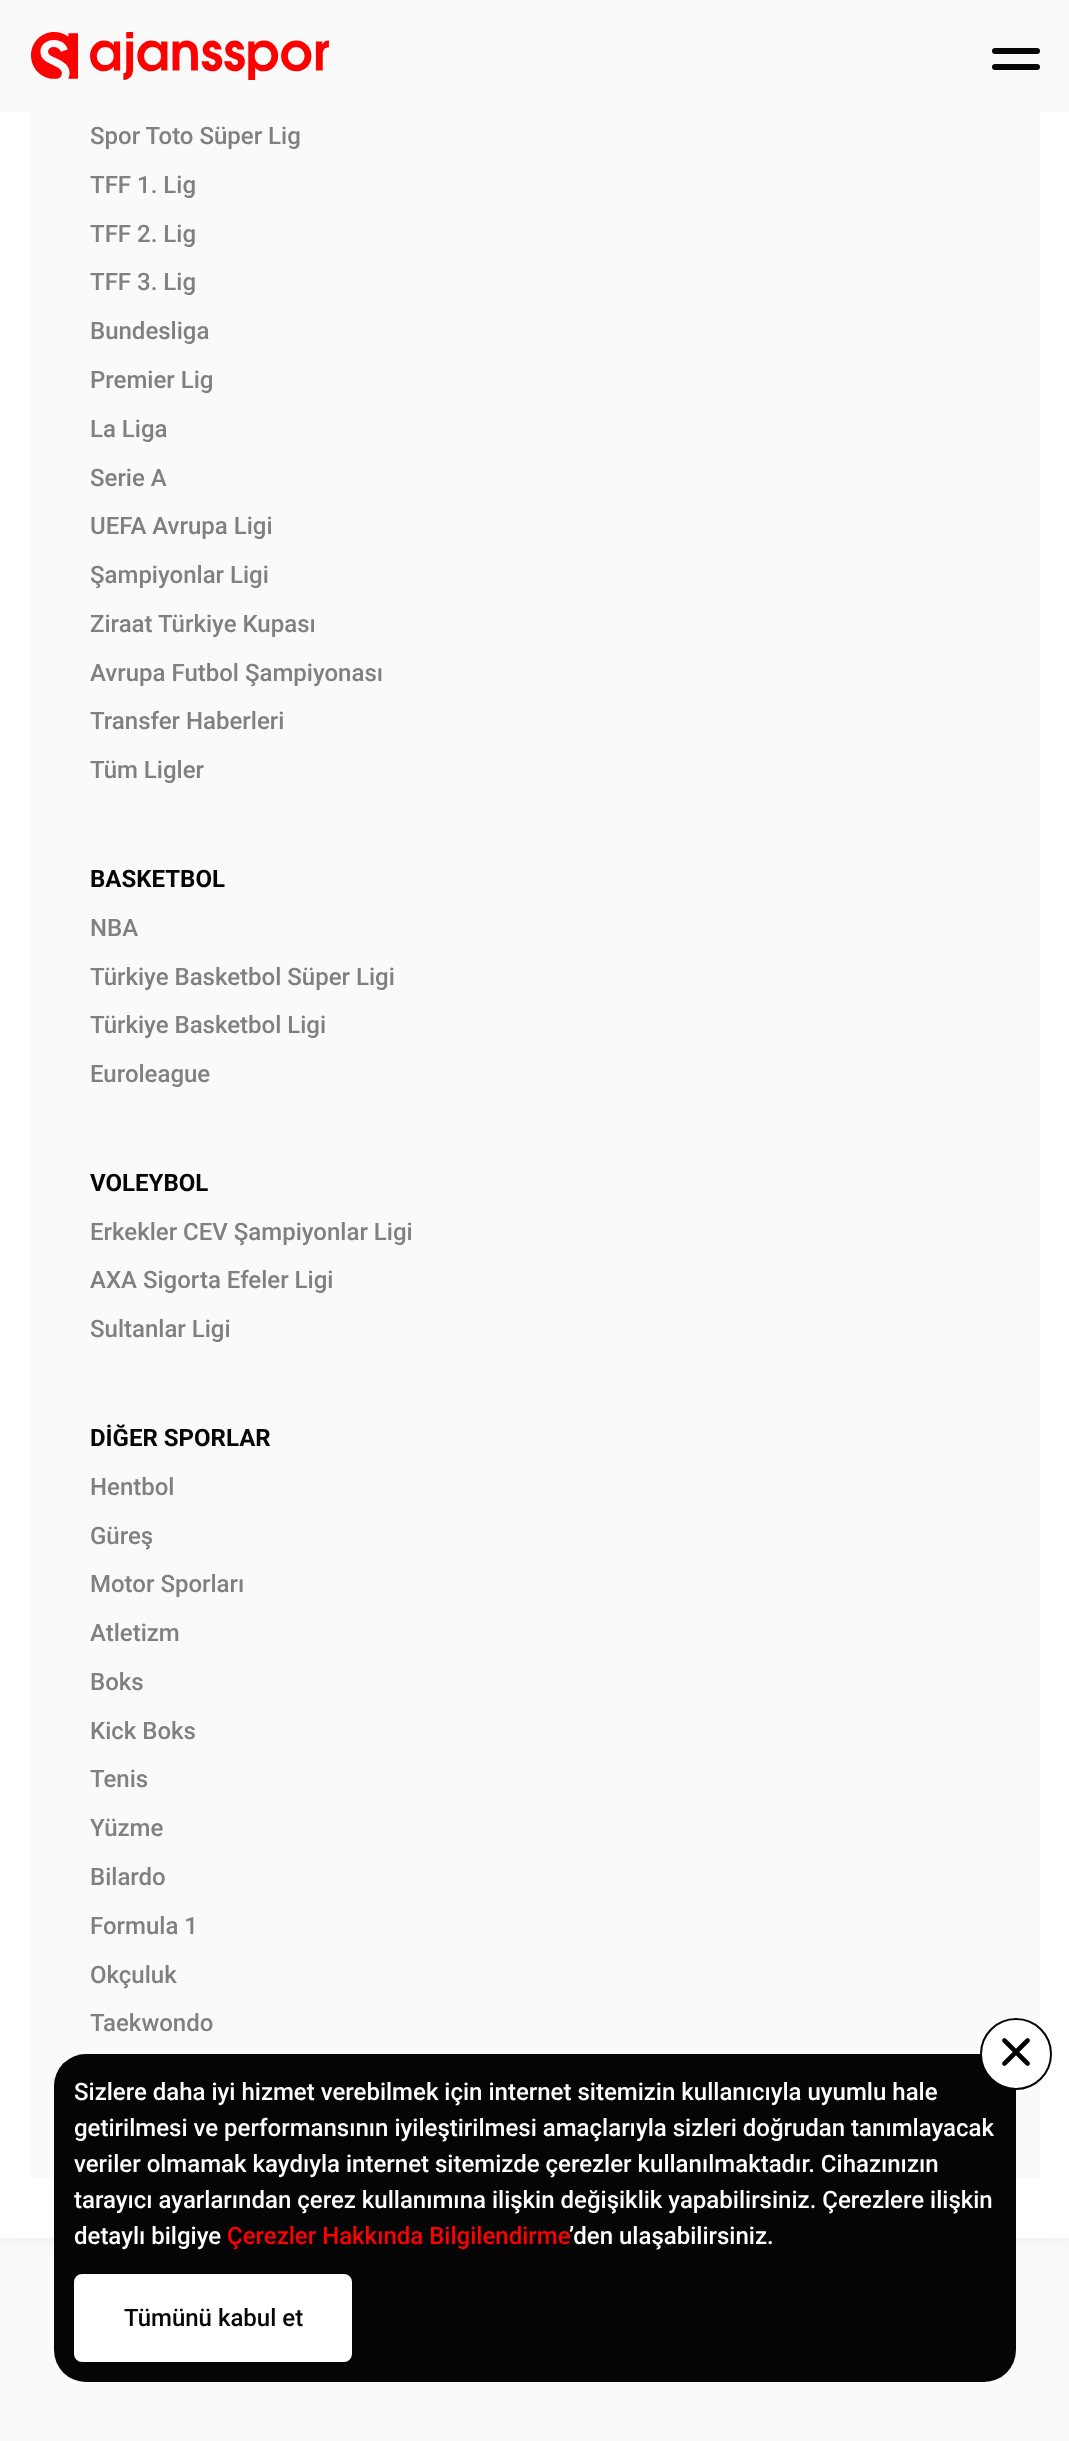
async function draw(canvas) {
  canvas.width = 1069;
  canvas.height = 2441;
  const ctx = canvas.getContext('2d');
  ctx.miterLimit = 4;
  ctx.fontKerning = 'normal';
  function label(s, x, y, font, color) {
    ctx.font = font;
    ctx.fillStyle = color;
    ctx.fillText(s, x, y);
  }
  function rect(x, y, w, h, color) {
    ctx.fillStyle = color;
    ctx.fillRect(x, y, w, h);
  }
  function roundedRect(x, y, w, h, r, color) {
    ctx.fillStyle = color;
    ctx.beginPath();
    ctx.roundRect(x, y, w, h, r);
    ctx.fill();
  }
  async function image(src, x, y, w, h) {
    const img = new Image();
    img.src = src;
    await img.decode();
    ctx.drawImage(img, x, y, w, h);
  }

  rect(0, 0, 1069, 2441, '#fafafa');
  ctx.fillStyle = '#0505050f';
  ctx.filter = 'blur(10px)';
  ctx.beginPath();
  ctx.rect(0, -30, 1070, 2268);
  ctx.fill();
  ctx.filter = 'none';
  rect(0, 0, 1069, 112, '#fafafa');
  await image('assets/img1.png', 31, 32, 298, 48);
  roundedRect(992, 48, 48, 6, 3, '#050505');
  roundedRect(992, 64, 48, 6, 3, '#050505');
  rect(0, 112, 1069, 2126, '#fff');
  rect(30, 112, 1010, 2066, '#fafafa');
  label('Spor Toto Süper Lig', 90, 144, '500 24px Roboto', '#808080');
  label('TFF 1. Lig', 90, 193, '500 24px Roboto', '#808080');
  label('TFF 2. Lig', 90, 242, '500 24px Roboto', '#808080');
  label('TFF 3. Lig', 90, 290, '500 24px Roboto', '#808080');
  label('Bundesliga', 90, 339, '500 24px Roboto', '#808080');
  label('Premier Lig', 90, 388, '500 24px Roboto', '#808080');
  label('La Liga', 90, 437, '500 24px Roboto', '#808080');
  label('Serie A', 90, 486, '500 24px Roboto', '#808080');
  label('UEFA Avrupa Ligi', 90, 534, '500 24px Roboto', '#808080');
  label('Şampiyonlar Ligi', 90, 583, '500 24px Roboto', '#808080');
  label('Ziraat Türkiye Kupası', 90, 632, '500 24px Roboto', '#808080');
  label('Avrupa Futbol Şampiyonası', 90, 681, '500 24px Roboto', '#808080');
  label('Transfer Haberleri', 90, 729, '500 24px Roboto', '#808080');
  label('Tüm Ligler', 90, 778, '500 24px Roboto', '#808080');
  label('BASKETBOL', 90, 887, 'bold 24px Roboto', '#050505');
  label('NBA', 90, 936, '500 24px Roboto', '#808080');
  label('Türkiye Basketbol Süper Ligi', 90, 985, '500 24px Roboto', '#808080');
  label('Türkiye Basketbol Ligi', 90, 1033, '500 24px Roboto', '#808080');
  label('Euroleague', 90, 1082, '500 24px Roboto', '#808080');
  label('VOLEYBOL', 90, 1191, 'bold 24px Roboto', '#050505');
  label('Erkekler CEV Şampiyonlar Ligi', 90, 1240, '500 24px Roboto', '#808080');
  label('AXA Sigorta Efeler Ligi', 90, 1288, '500 24px Roboto', '#808080');
  label('Sultanlar Ligi', 90, 1337, '500 24px Roboto', '#808080');
  label('DİĞER SPORLAR', 90, 1446, 'bold 24px Roboto', '#050505');
  label('Hentbol', 90, 1495, '500 24px Roboto', '#808080');
  label('Güreş', 90, 1544, '500 24px Roboto', '#808080');
  label('Motor Sporları', 90, 1592, '500 24px Roboto', '#808080');
  label('Atletizm', 90, 1641, '500 24px Roboto', '#808080');
  label('Boks', 90, 1690, '500 24px Roboto', '#808080');
  label('Kick Boks', 90, 1739, '500 24px Roboto', '#808080');
  label('Tenis', 90, 1787, '500 24px Roboto', '#808080');
  label('Yüzme', 90, 1836, '500 24px Roboto', '#808080');
  label('Bilardo', 90, 1885, '500 24px Roboto', '#808080');
  label('Formula 1', 90, 1934, '500 24px Roboto', '#808080');
  label('Okçuluk', 90, 1983, '500 24px Roboto', '#808080');
  label('Taekwondo', 90, 2031, '500 24px Roboto', '#808080');
  roundedRect(54, 2054, 962, 328, 32, '#050505');
  ctx.fillStyle = '#fff';
  ctx.beginPath();
  ctx.arc(1016, 2054, 35, 0, 2 * Math.PI);
  ctx.fill();
  ctx.strokeStyle = '#050505';
  ctx.lineWidth = 2;
  ctx.stroke();
  await image('assets/img2.png', 1002, 2038, 28, 28);
  label('Sizlere daha iyi hizmet verebilmek için internet sitemizin kullanıcıyla uyumlu hale', 74, 2100, '500 24px Roboto', '#fff');
  label('getirilmesi ve performansının iyileştirilmesi amaçlarıyla sizleri doğrudan tanımlayacak', 74, 2136, '500 24px Roboto', '#fff');
  label('veriler olmamak kaydıyla internet sitemizde çerezler kullanılmaktadır. Cihazınızın', 74, 2172, '500 24px Roboto', '#fff');
  label('tarayıcı ayarlarından çerez kullanımına ilişkin değişiklik yapabilirsiniz. Çerezlere ilişkin', 74, 2208, '500 24px Roboto', '#fff');
  label('detaylı bilgiye', 74, 2244, '500 24px Roboto', '#fff');
  label('Çerezler Hakkında Bilgilendirme', 227, 2244, '500 24px Roboto', '#f00');
  label('’den ulaşabilirsiniz.', 569, 2244, '500 24px Roboto', '#fff');
  ctx.beginPath();
  ctx.roundRect(75, 2275, 276, 86, 7);
  ctx.fill();
  ctx.strokeStyle = '#fff';
  ctx.stroke();
  label('Tümünü kabul et', 124, 2326, '500 24px Roboto', '#050505');
}

draw(document.querySelector('canvas'));
